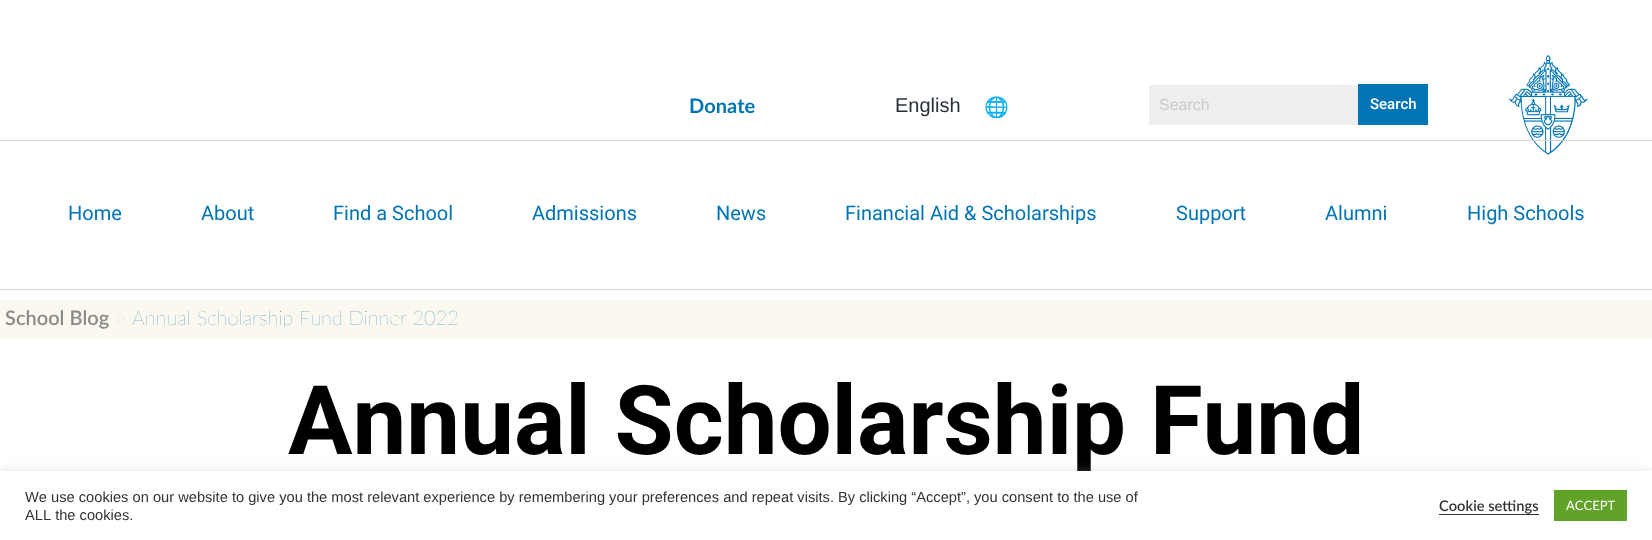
async function draw(canvas) {
  canvas.width = 1652;
  canvas.height = 540;
  const ctx = canvas.getContext('2d');
  ctx.miterLimit = 4;
  ctx.fontKerning = 'none';
  function label(s, x, y, font, color) {
    ctx.font = font;
    ctx.fillStyle = color;
    ctx.fillText(s, x, y);
  }
  function rect(x, y, w, h, color) {
    ctx.fillStyle = color;
    ctx.fillRect(x, y, w, h);
  }
  async function image(src, x, y, w, h) {
    const img = new Image();
    img.src = src;
    await img.decode();
    ctx.drawImage(img, x, y, w, h);
  }

  rect(0, 0, 1652, 540, '#fff');
  label('Donate', 689, 113, 'bold 20px Lato', '#0074b4');
  label('English', 895, 112, '20px Liberation Sans', '#28303d');
  label('🌐', 984, 114, 'bold 20px Noto Color Emoji', '#0074b4');
  rect(1149, 85, 209, 40, '#eee');
  label('Search', 1159, 110, '16px Liberation Sans', '#cacaca');
  rect(1358, 84, 70, 41, '#0074b4');
  label('Search', 1370, 109, '500 15px Roboto', '#fff');
  await image('assets/img1.png', 1508, 55, 80, 100);
  rect(0, 140, 1652, 1, '#d3d3d3');
  rect(0, 289, 1652, 1, '#d3d3d3');
  label('Home', 68, 220, '20px Roboto', '#0074b4');
  label('About', 201, 220, '20px Roboto', '#0074b4');
  label('Find a School', 333, 220, '20px Roboto', '#0074b4');
  label('Admissions', 532, 220, '20px Roboto', '#0074b4');
  label('News', 716, 220, '20px Roboto', '#0074b4');
  label('Financial Aid & Scholarships', 845, 220, '20px Roboto', '#0074b4');
  label('Support', 1176, 220, '20px Roboto', '#0074b4');
  label('Alumni', 1325, 220, '20px Roboto', '#0074b4');
  label('High Schools', 1467, 220, '20px Roboto', '#0074b4');
  rect(0, 300, 1652, 39, '#fbf9ef');
  label('School Blog', 5, 325, '600 20px Lato', '#8a8a8a');
  label('>', 115, 325, '200 20px Lato', '#8a8a8a');
  label('Annual Scholarship Fund Dinner 2022', 132, 325, '200 20px Lato', '#0074b4');
  label('Annual Scholarship Fund', 288, 454, 'bold 96px Roboto', '#000');
  ctx.fillStyle = '#acabab4d';
  ctx.filter = 'blur(5px)';
  ctx.beginPath();
  ctx.rect(0, 470, 1652, 69);
  ctx.fill();
  ctx.filter = 'none';
  rect(0, 471, 1652, 69, '#fff');
  label('We use cookies on our website to give you the most relevant experience by remembering your preferences and repeat visits. By clicking “Accept”, you consent to the use of', 25, 502, '14.67px Liberation Sans', '#333');
  label('ALL the cookies.', 25, 520, '14.67px Liberation Sans', '#333');
  label('Cookie settings', 1439, 511, '600 14.67px Lato', '#333');
  rect(1439, 514, 100, 1, '#333');
  rect(1554, 490, 73, 31, '#61a229');
  label('ACCEPT', 1566, 510, '13px Lato', '#fff');
}

draw(document.querySelector('canvas'));
